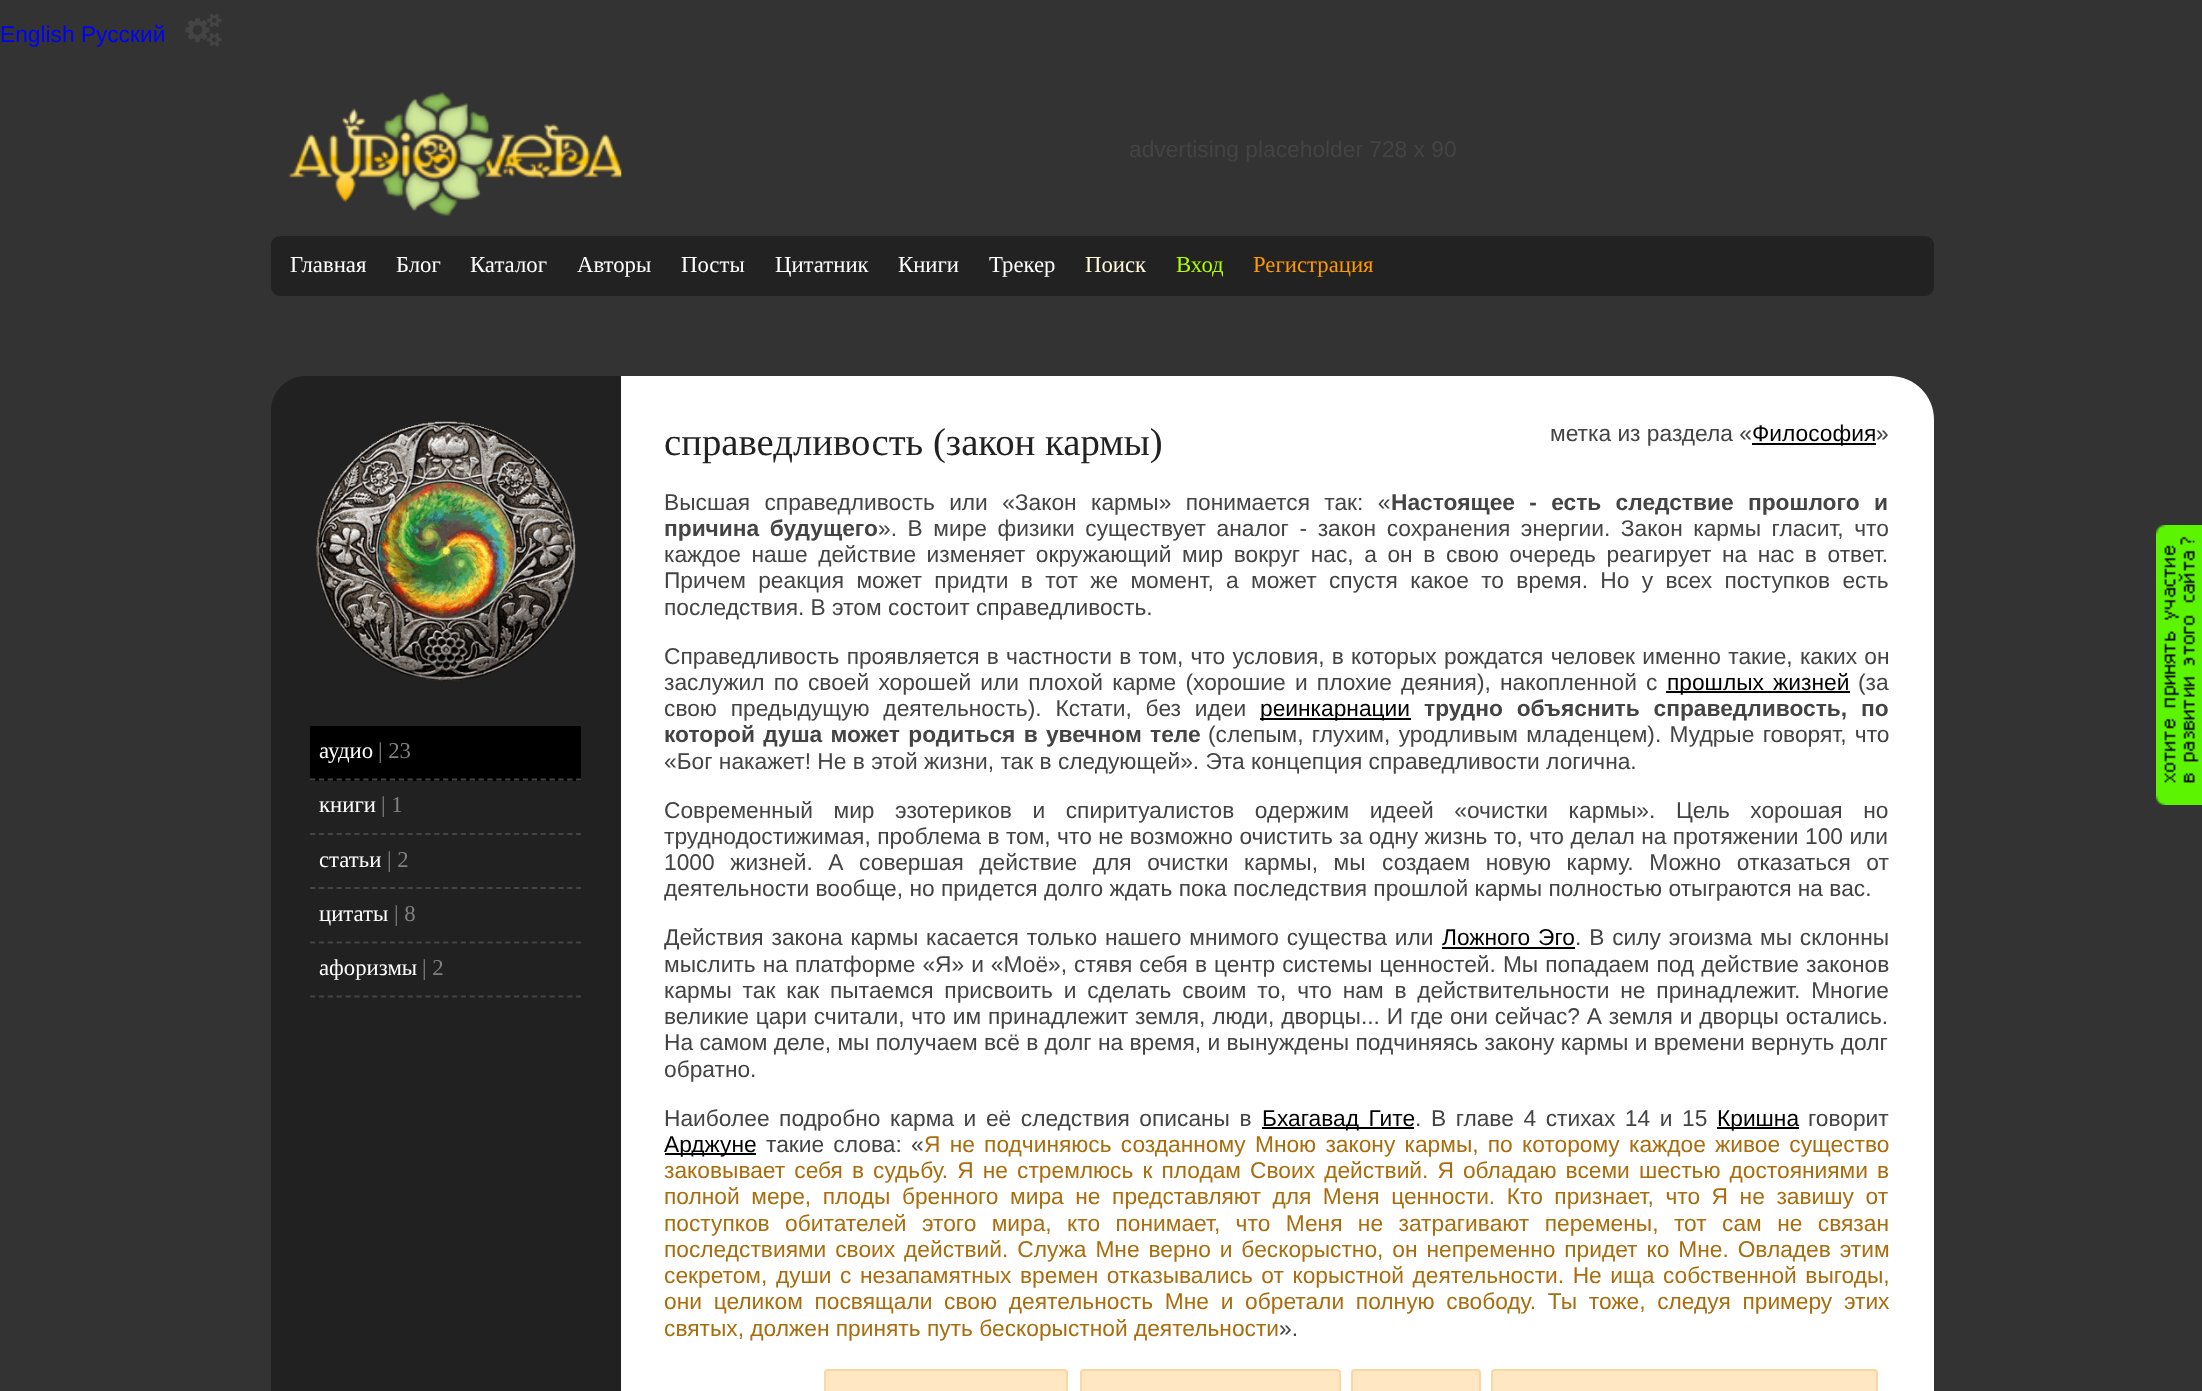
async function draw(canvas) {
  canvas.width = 2202;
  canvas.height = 1391;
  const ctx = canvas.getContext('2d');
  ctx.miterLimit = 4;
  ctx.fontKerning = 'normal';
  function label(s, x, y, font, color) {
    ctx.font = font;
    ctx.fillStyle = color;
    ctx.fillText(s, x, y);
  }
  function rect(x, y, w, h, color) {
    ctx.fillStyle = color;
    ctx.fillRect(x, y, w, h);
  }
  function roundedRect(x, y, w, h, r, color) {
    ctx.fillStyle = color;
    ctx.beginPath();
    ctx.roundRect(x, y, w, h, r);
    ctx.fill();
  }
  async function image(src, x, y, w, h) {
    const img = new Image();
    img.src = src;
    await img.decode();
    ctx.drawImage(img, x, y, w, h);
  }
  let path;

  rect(0, 0, 2202, 1391, '#333');
  label('English Русский', 0, 42, '22.75px Liberation Sans', '#00f');
  await image('assets/img1.png', 185, 13, 37, 34);
  await image('assets/img2.png', 288, 92, 334, 124);
  label('advertising placeholder 728 х 90', 1129, 157, '22.75px Liberation Sans', '#444');
  roundedRect(271, 236, 1663, 60, 9, '#222');
  label('Главная', 290, 272, '22.75px Liberation Serif', '#fff');
  label('Блог', 396, 272, '22.75px Liberation Serif', '#fff');
  label('Каталог', 470, 272, '22.75px Liberation Serif', '#fff');
  label('Авторы', 577, 272, '22.75px Liberation Serif', '#fff');
  label('Посты', 681, 272, '22.75px Liberation Serif', '#fff');
  label('Цитатник', 775, 272, '22.75px Liberation Serif', '#fff');
  label('Книги', 898, 272, '22.75px Liberation Serif', '#fff');
  label('Трекер', 989, 272, '22.75px Liberation Serif', '#fff');
  label('Поиск', 1085, 272, '22.75px Liberation Serif', '#fff8dc');
  label('Вход', 1176, 272, '22.75px Liberation Serif', '#aeff00');
  label('Регистрация', 1253, 272, '22.75px Liberation Serif', '#f90');
  ctx.fillStyle = '#fff';
  path = new Path2D('M315 376H1890C1914.5 376 1934 395.5 1934 420V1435H271V420C271 395.5 290.5 376 315 376Z');
  ctx.fill(path);
  ctx.fillStyle = '#212121';
  path = new Path2D('M306 376H621V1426H271V411C271 391.5 286.5 376 306 376Z');
  ctx.fill(path);
  await image('assets/img3.png', 316, 421, 260, 260);
  rect(310, 726, 271, 55, '#000');
  path = new Path2D('M310 779.5H581');
  ctx.strokeStyle = '#444';
  ctx.lineWidth = 1.8;
  ctx.setLineDash([5.25, 3.62]);
  ctx.stroke(path);
  label('аудио', 319, 758, '22.75px Liberation Serif', '#fff');
  label('| 23', 378, 758, '22.75px Liberation Serif', '#808080');
  path = new Path2D('M310 834H581');
  ctx.stroke(path);
  label('книги', 319, 812, '22.75px Liberation Serif', '#fff');
  label('| 1', 381, 812, '22.75px Liberation Serif', '#808080');
  path = new Path2D('M310 888H581');
  ctx.stroke(path);
  label('статьи', 319, 867, '22.75px Liberation Serif', '#fff');
  label('| 2', 387, 867, '22.75px Liberation Serif', '#808080');
  path = new Path2D('M310 942.5H581');
  ctx.stroke(path);
  label('цитаты', 319, 921, '22.75px Liberation Serif', '#fff');
  label('| 8', 394, 921, '22.75px Liberation Serif', '#808080');
  path = new Path2D('M310 996.5H581');
  ctx.stroke(path);
  label('афоризмы', 319, 975, '22.75px Liberation Serif', '#fff');
  label('| 2', 422, 975, '22.75px Liberation Serif', '#808080');
  label('справедливость (закон кармы)', 664, 455, '38.75px Liberation Serif', '#222');
  label('метка из раздела «', 1550, 441, '22.75px Liberation Sans', '#444');
  rect(1752, 443, 124, 2, '#000');
  label('Философия', 1752, 441, '22.75px Liberation Sans', '#000');
  label('»', 1876, 441, '22.75px Liberation Sans', '#444');
  ctx.wordSpacing = '8px';
  label('Высшая справедливость или «Закон кармы» понимается так: «', 664, 510, '22.75px Liberation Sans', '#444');
  label('Настоящее - есть следствие прошлого и', 1391, 510, 'bold 22.75px Liberation Sans', '#444');
  ctx.wordSpacing = '4.25px';
  label('причина будущего', 664, 536, 'bold 22.75px Liberation Sans', '#444');
  label('». В мире физики существует аналог - закон сохранения энергии. Закон кармы гласит, что', 878, 536, '22.75px Liberation Sans', '#444');
  label('каждое наше действие изменяет окружающий мир вокруг нас, а он в свою очередь реагирует на нас в ответ.', 664, 562, '22.75px Liberation Sans', '#444');
  ctx.wordSpacing = '6px';
  label('Причем реакция может придти в тот же момент, а может спустя какое то время. Но у всех поступков есть', 664, 588, '22.75px Liberation Sans', '#444');
  ctx.wordSpacing = '0px';
  label('последствия. В этом состоит справедливость.', 664, 615, '22.75px Liberation Sans', '#444');
  ctx.wordSpacing = '0.9px';
  label('Справедливость проявляется в частности в том, что условия, в которых рождатся человек именно такие, каких он', 664, 664, '22.75px Liberation Sans', '#444');
  ctx.wordSpacing = '2.9px';
  label('заслужил по своей хорошей или плохой карме (хорошие и плохие деяния), накопленной с', 664, 690, '22.75px Liberation Sans', '#444');
  rect(1666, 691, 184, 2, '#000');
  label('прошлых жизней', 1667, 690, '22.75px Liberation Sans', '#000');
  ctx.wordSpacing = '0px';
  label('(за', 1858, 690, '22.75px Liberation Sans', '#444');
  ctx.wordSpacing = '7.5px';
  label('свою предыдущую деятельность). Кстати, без идеи', 664, 716, '22.75px Liberation Sans', '#444');
  rect(1260, 718, 151, 2, '#000');
  ctx.wordSpacing = '0px';
  label('реинкарнации', 1260, 716, '22.75px Liberation Sans', '#000');
  ctx.wordSpacing = '7.5px';
  label('трудно объяснить справедливость, по', 1424, 716, 'bold 22.75px Liberation Sans', '#444');
  ctx.wordSpacing = '2px';
  label('которой душа может родиться в увечном теле', 664, 742, 'bold 22.75px Liberation Sans', '#444');
  label('(слепым, глухим, уродливым младенцем). Мудрые говорят, что', 1208, 742, '22.75px Liberation Sans', '#444');
  ctx.wordSpacing = '0px';
  label('«Бог накажет! Не в этой жизни, так в следующей». Эта концепция справедливости логична.', 664, 769, '22.75px Liberation Sans', '#444');
  ctx.wordSpacing = '14.25px';
  label('Современный мир эзотериков и спиритуалистов одержим идеей «очистки кармы». Цель хорошая но', 664, 818, '22.75px Liberation Sans', '#444');
  ctx.wordSpacing = '0.1px';
  label('труднодостижимая, проблема в том, что не возможно очистить за одну жизнь то, что делал на протяжении 100 или', 664, 844, '22.75px Liberation Sans', '#444');
  ctx.wordSpacing = '9.25px';
  label('1000 жизней. А совершая действие для очистки кармы, мы', 664, 870, '22.75px Liberation Sans', '#444');
  label('создаем новую карму. Можно отказаться от', 1382, 870, '22.75px Liberation Sans', '#444');
  ctx.wordSpacing = '0px';
  label('деятельности вообще, но придется долго ждать пока последствия прошлой кармы полностью отыграются на вас.', 664, 896, '22.75px Liberation Sans', '#444');
  ctx.wordSpacing = '1.5px';
  label('Действия закона кармы касается только нашего мнимого существа или', 664, 945, '22.75px Liberation Sans', '#444');
  label('Ложного Эго', 1442, 945, '22.75px Liberation Sans', '#000');
  rect(1442, 947, 133, 2, '#000');
  label('. В силу эгоизма мы склонны', 1575, 945, '22.75px Liberation Sans', '#444');
  ctx.wordSpacing = '0.7px';
  label('мыслить на платформе «Я» и «Моё», стявя себя в центр системы ценностей. Мы попадаем под действие законов', 664, 972, '22.75px Liberation Sans', '#444');
  ctx.wordSpacing = '4.5px';
  label('кармы так как пытаемся присвоить и сделать своим то, что нам в действительности не принадлежит. Многие', 664, 998, '22.75px Liberation Sans', '#444');
  ctx.wordSpacing = '0.5px';
  label('великие цари считали, что им принадлежит земля, люди, дворцы... И где они сейчас? А земля и дворцы остались.', 664, 1024, '22.75px Liberation Sans', '#444');
  ctx.wordSpacing = '0px';
  label('На самом деле, мы получаем всё в долг на время, и вынуждены подчиняясь закону кармы и времени вернуть долг', 664, 1050, '22.75px Liberation Sans', '#444');
  label('обратно.', 664, 1077, '22.75px Liberation Sans', '#444');
  ctx.wordSpacing = '3.25px';
  label('Наиболее подробно карма и её следствия описаны в', 664, 1126, '22.75px Liberation Sans', '#444');
  rect(1262, 1127, 152, 2, '#000');
  label('Бхагавад Гите', 1262, 1126, '22.75px Liberation Sans', '#000');
  label('. В главе 4 стихах 14 и 15', 1415, 1126, '22.75px Liberation Sans', '#444');
  rect(1717, 1127, 82, 2, '#000');
  ctx.wordSpacing = '0px';
  label('Кришна', 1717, 1126, '22.75px Liberation Sans', '#000');
  label('говорит', 1808, 1126, '22.75px Liberation Sans', '#444');
  rect(665, 1153, 91, 2, '#000');
  label('Арджуне', 664, 1152, '22.75px Liberation Sans', '#000');
  ctx.wordSpacing = '2.9px';
  label('такие слова: «', 766, 1152, '22.75px Liberation Sans', '#444');
  label('Я не подчиняюсь созданному Мною закону кармы, по которому каждое живое существо', 924, 1152, '22.75px Liberation Sans', '#a96d0e');
  ctx.wordSpacing = '2.75px';
  label('заковывает себя в судьбу. Я не стремлюсь к плодам Своих действий. Я обладаю всеми шестью достояниями в', 664, 1178, '22.75px Liberation Sans', '#a96d0e');
  ctx.wordSpacing = '5.25px';
  label('полной мере, плоды бренного мира не представляют для Меня ценности. Кто признает, что Я не завишу от', 664, 1204, '22.75px Liberation Sans', '#a96d0e');
  ctx.wordSpacing = '9.1px';
  label('поступков обитателей этого мира, кто понимает, что Меня не затрагивают перемены, тот сам не связан', 664, 1231, '22.75px Liberation Sans', '#a96d0e');
  ctx.wordSpacing = '2.6px';
  label('последствиями своих действий. Служа Мне верно и бескорыстно, он непременно придет ко Мне. Овладев этим', 664, 1257, '22.75px Liberation Sans', '#a96d0e');
  ctx.wordSpacing = '2.25px';
  label('секретом, души с незапамятных времен отказывались от корыстной деятельности. Не ища собственной выгоды,', 664, 1283, '22.75px Liberation Sans', '#a96d0e');
  ctx.wordSpacing = '5.4px';
  label('они целиком посвящали свою деятельность Мне и обретали полную свободу. Ты тоже, следуя примеру этих', 664, 1309, '22.75px Liberation Sans', '#a96d0e');
  ctx.wordSpacing = '0px';
  label('святых, должен принять путь бескорыстной деятельности', 664, 1336, '22.75px Liberation Sans', '#a96d0e');
  label('».', 1279, 1336, '22.75px Liberation Sans', '#444');
  ctx.fillStyle = '#ffe7c3';
  ctx.beginPath();
  ctx.roundRect(825, 1370, 242, 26, 3);
  ctx.fill();
  ctx.strokeStyle = '#fad7a0';
  ctx.lineWidth = 2;
  ctx.setLineDash([]);
  ctx.stroke();
  ctx.beginPath();
  ctx.roundRect(1081, 1370, 259, 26, 3);
  ctx.fill();
  ctx.stroke();
  ctx.beginPath();
  ctx.roundRect(1352, 1370, 128, 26, 3);
  ctx.fill();
  ctx.stroke();
  ctx.beginPath();
  ctx.roundRect(1492, 1370, 385, 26, 3);
  ctx.fill();
  ctx.stroke();
  await image('assets/img4.png', 2156, 525, 46, 280);
}

draw(document.querySelector('canvas'));
